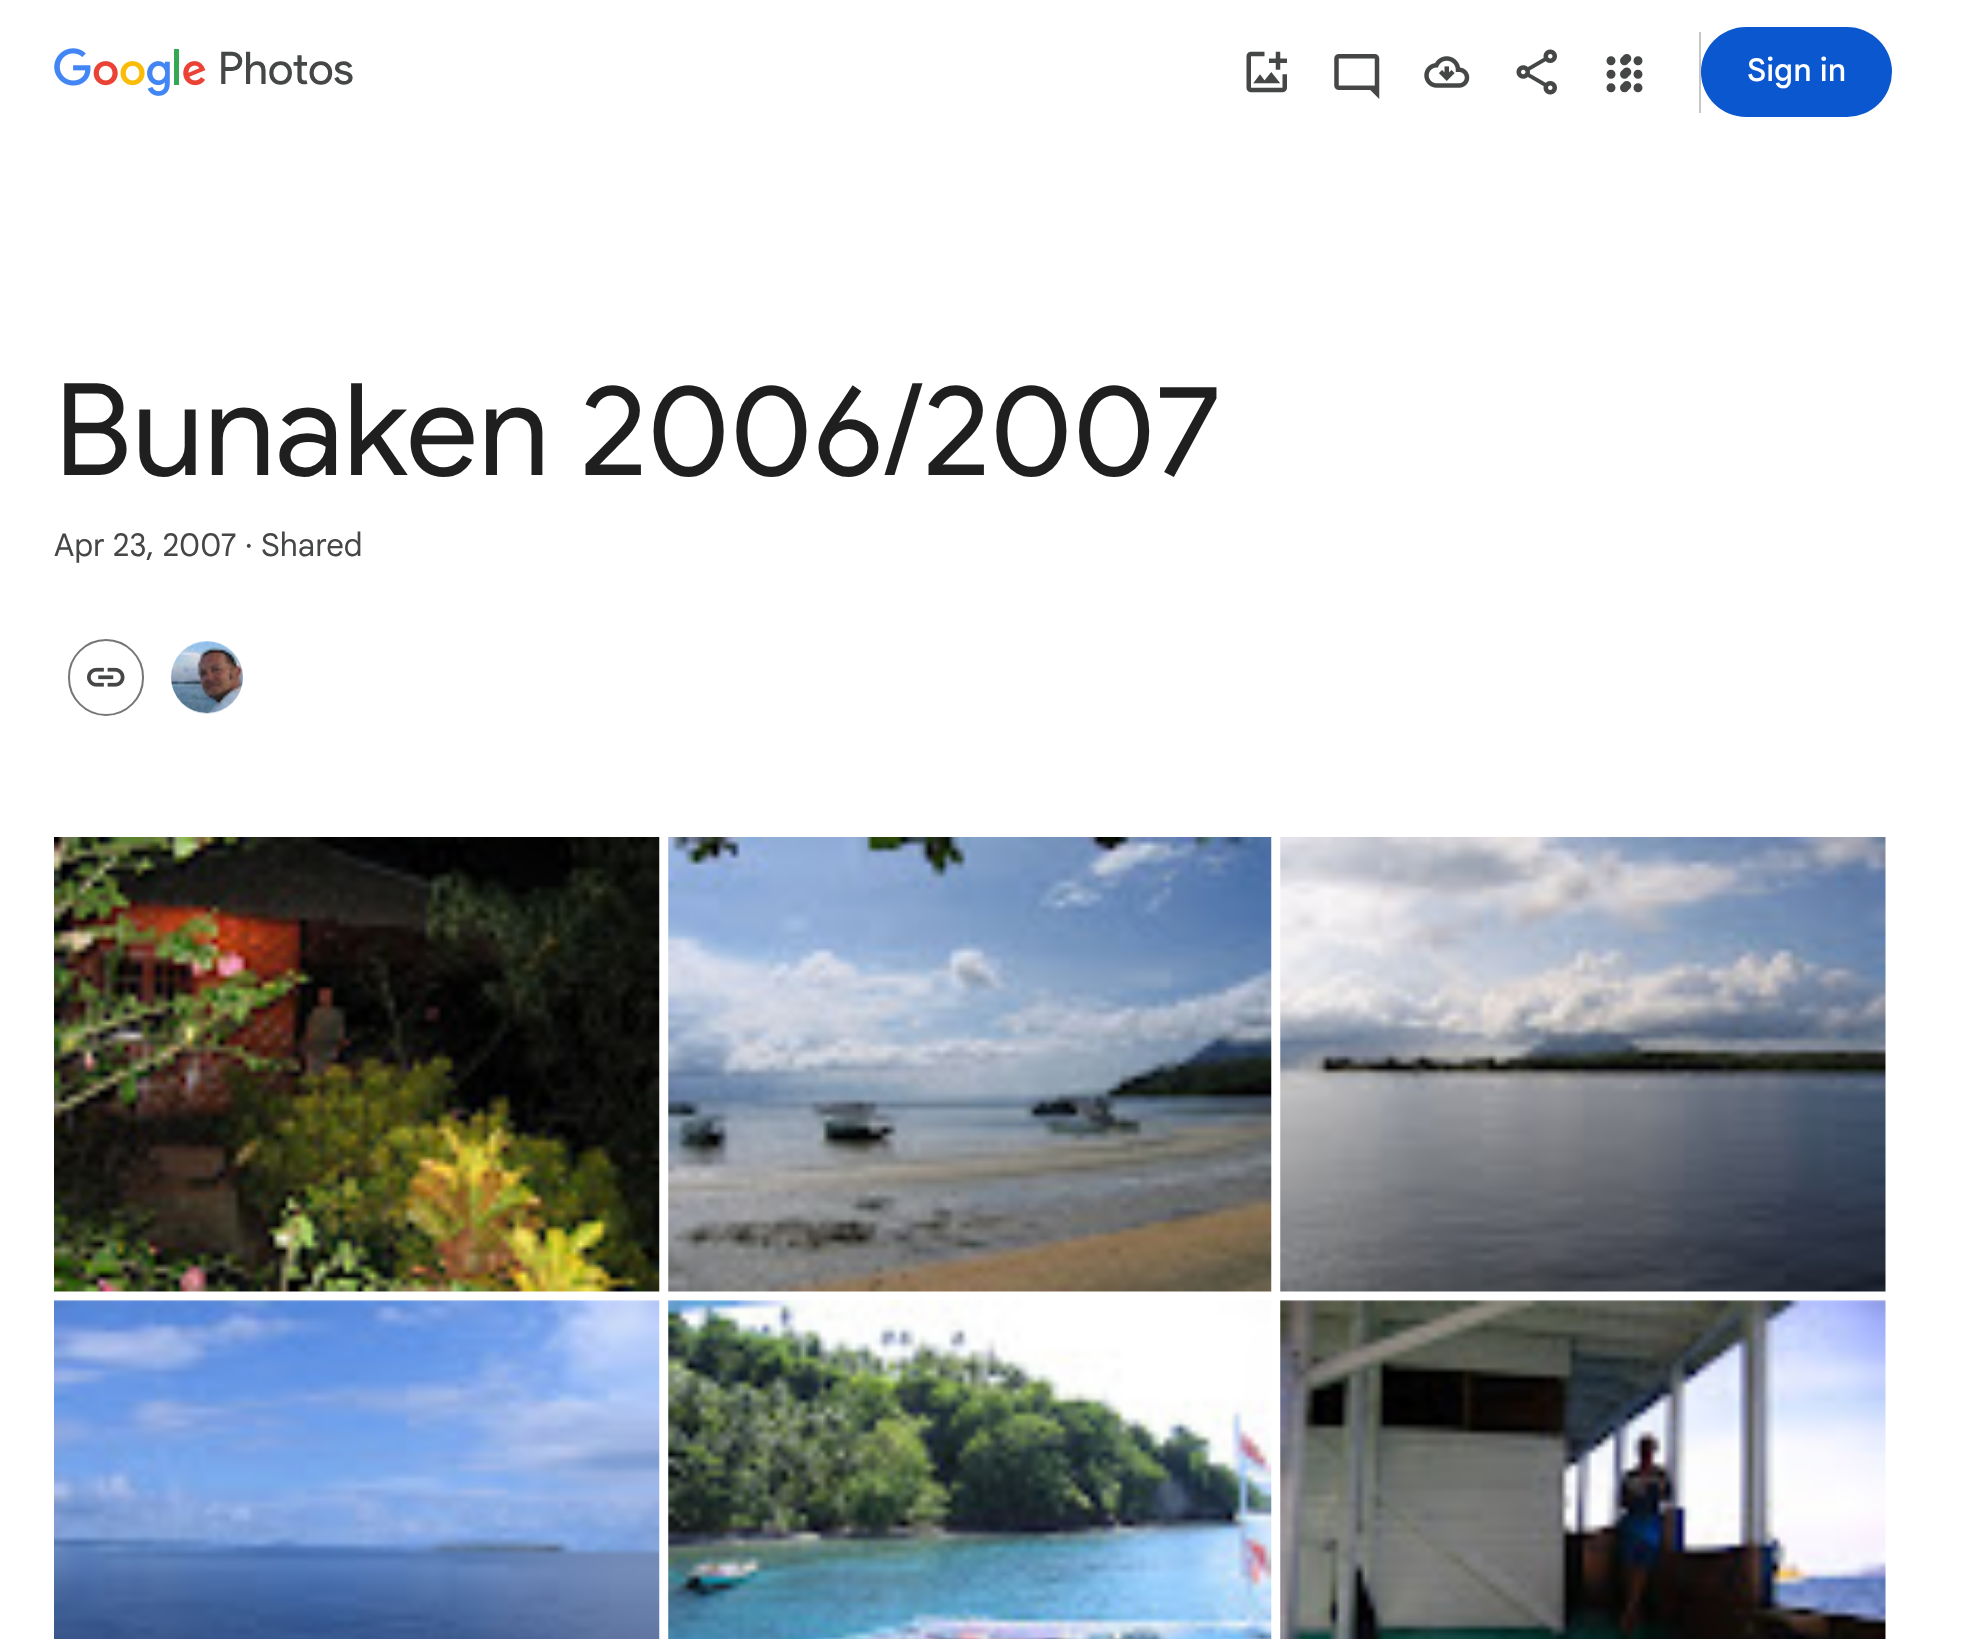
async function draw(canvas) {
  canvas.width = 1973;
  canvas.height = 1639;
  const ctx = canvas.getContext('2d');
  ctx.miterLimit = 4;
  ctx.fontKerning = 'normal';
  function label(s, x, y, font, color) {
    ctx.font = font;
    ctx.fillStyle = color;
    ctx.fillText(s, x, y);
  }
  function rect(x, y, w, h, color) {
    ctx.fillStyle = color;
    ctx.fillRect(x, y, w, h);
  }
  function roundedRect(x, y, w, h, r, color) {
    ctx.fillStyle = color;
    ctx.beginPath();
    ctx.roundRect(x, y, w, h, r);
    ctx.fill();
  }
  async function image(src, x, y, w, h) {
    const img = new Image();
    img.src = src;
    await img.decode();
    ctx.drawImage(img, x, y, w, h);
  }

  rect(0, 0, 1973, 1639, '#fff');
  await image('assets/img1.png', 54, 48, 152, 48);
  label('Photos', 218, 84, '45px Product Sans', '#444746');
  await image('assets/img2.png', 1246, 51, 41, 42);
  await image('assets/img3.png', 1334, 54, 46, 45);
  await image('assets/img4.png', 1424, 56, 46, 32);
  await image('assets/img5.png', 1516, 49, 41, 46);
  await image('assets/img6.png', 1622, 54, 10, 36);
  rect(1699, 32, 2, 81, '#c4c7c5');
  label('Bunaken 2006/2007', 54, 475, '128.25px Google Sans', '#1f1f1f');
  label('Apr 23, 2007 · Shared', 54, 556, '31.5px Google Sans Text', '#444746');
  ctx.beginPath();
  ctx.roundRect(69, 640, 74, 75, 37);
  ctx.strokeStyle = '#747775';
  ctx.lineWidth = 2;
  ctx.stroke();
  await image('assets/img7.png', 87, 667, 38, 20);
  await image('assets/img8.png', 171, 641, 72, 73);
  await image('assets/img9.png', 54, 837, 606, 455);
  await image('assets/img10.png', 668, 837, 604, 455);
  await image('assets/img11.png', 1280, 837, 606, 455);
  await image('assets/img12.png', 54, 1300, 606, 339);
  await image('assets/img13.png', 668, 1300, 604, 339);
  await image('assets/img14.png', 1280, 1300, 606, 339);
  await image('assets/img15.png', 1606, 56, 37, 37);
  roundedRect(1701, 27, 191, 90, 45, '#0b57d0');
  label('Sign in', 1747, 81, '500 31.5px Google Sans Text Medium', '#fff');
}

draw(document.querySelector('canvas'));
